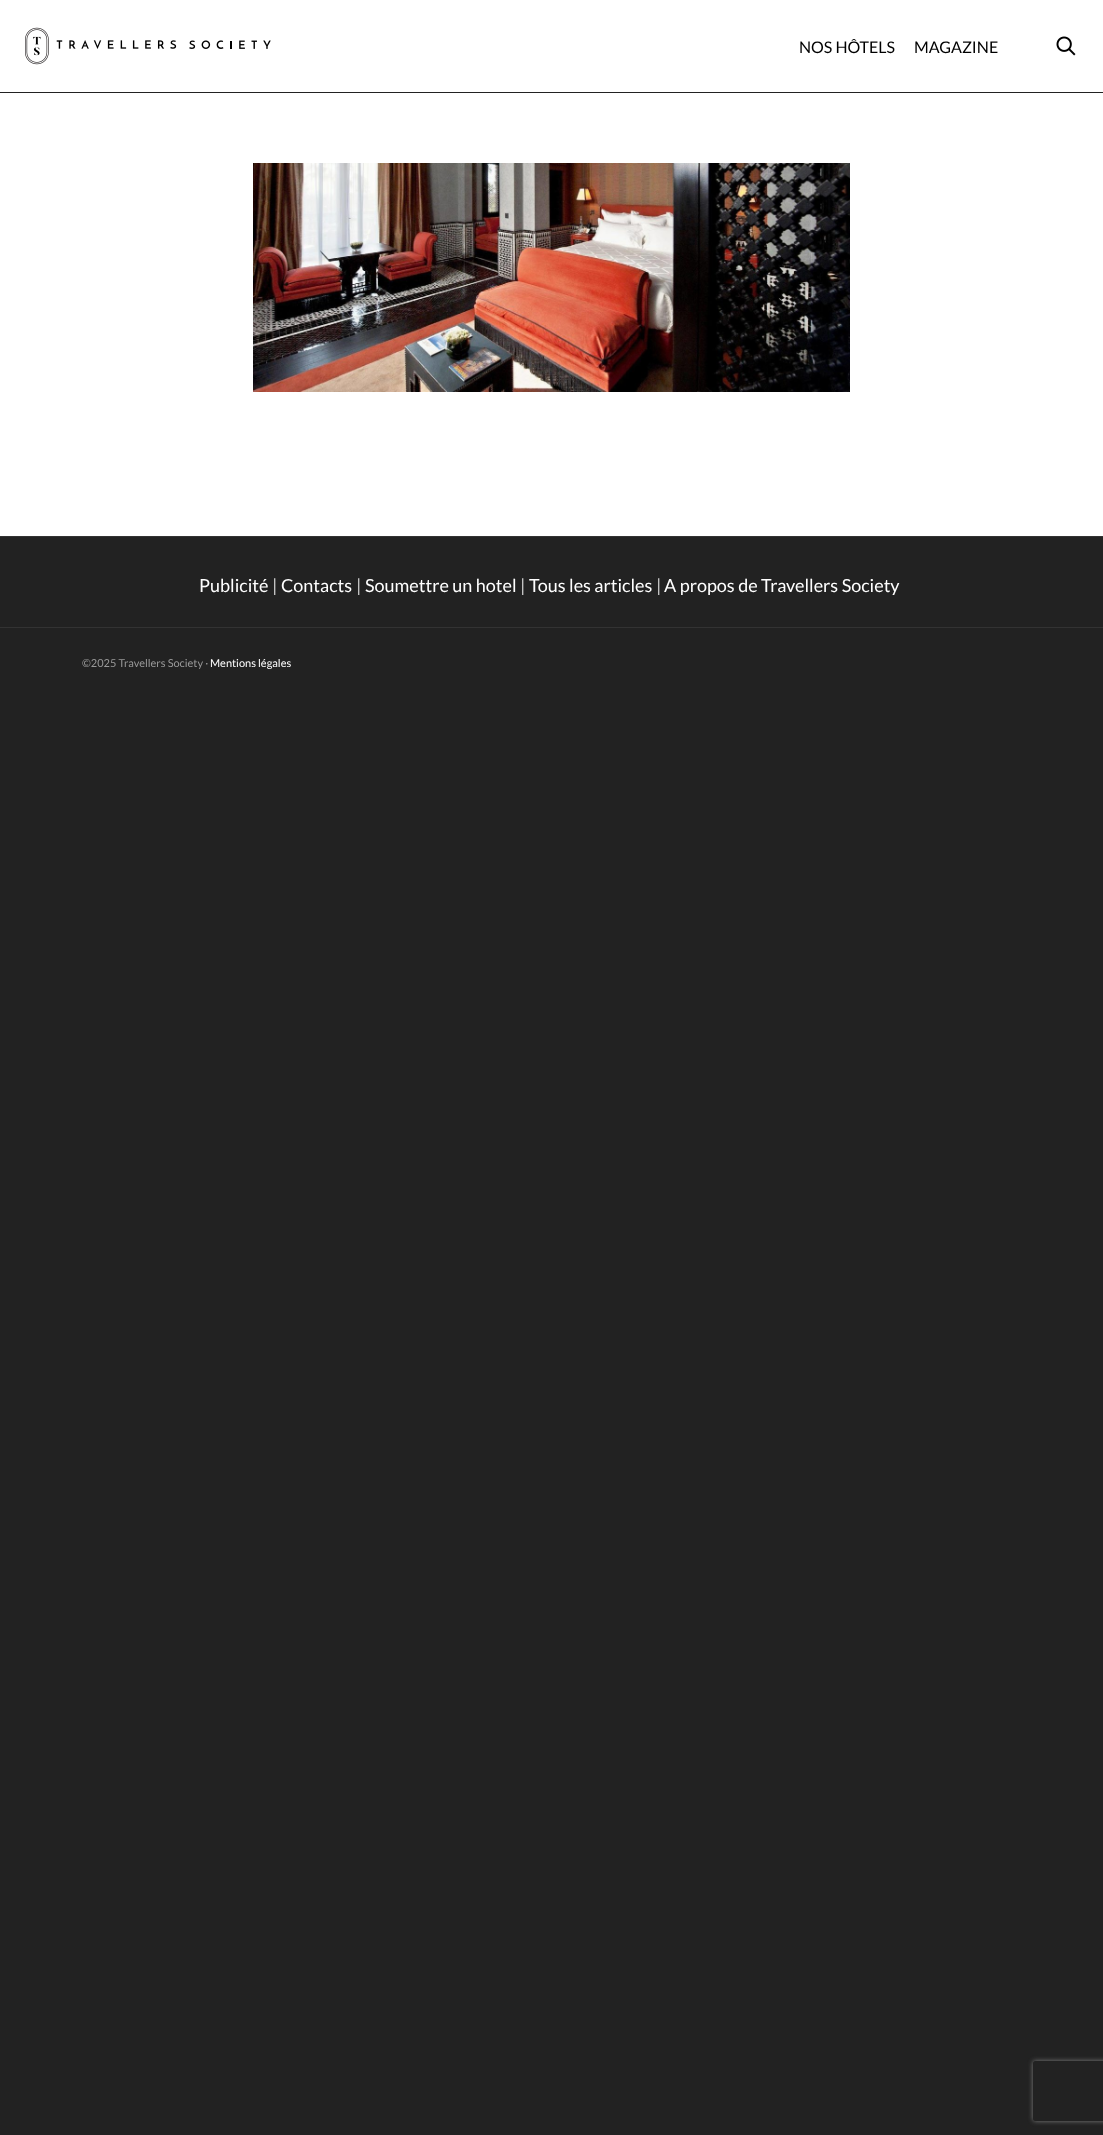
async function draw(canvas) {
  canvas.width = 1103;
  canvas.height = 2135;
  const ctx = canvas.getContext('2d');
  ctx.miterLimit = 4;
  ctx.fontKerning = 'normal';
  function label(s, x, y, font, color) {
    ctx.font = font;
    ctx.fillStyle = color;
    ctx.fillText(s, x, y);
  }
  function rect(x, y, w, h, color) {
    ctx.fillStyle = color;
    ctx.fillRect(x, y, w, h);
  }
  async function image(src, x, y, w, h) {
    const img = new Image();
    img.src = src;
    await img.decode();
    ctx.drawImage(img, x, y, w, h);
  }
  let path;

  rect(0, 0, 1103, 2135, '#222');
  rect(0, 0, 1103, 92, '#fff');
  await image('assets/img1.png', 25, 27, 246, 38);
  label('NOS HÔTELS', 799, 53, '16px Lato', '#000');
  label('MAGAZINE', 914, 53, '16px Lato', '#000');
  await image('assets/img2.png', 1056, 36, 20, 20);
  rect(0, 93, 1103, 443, '#fff');
  await image('assets/img3.png', 253, 163, 597, 229);
  rect(0, 536, 1103, 1, '#333');
  label('Publicité', 199, 592, '18px Lato', '#fff');
  label('|', 272, 592, '18px Lato', '#ccc');
  label('Contacts', 281, 592, '18px Lato', '#fff');
  label('|', 356, 592, '18px Lato', '#ccc');
  label('Soumettre un hotel', 365, 592, '18px Lato', '#fff');
  label('|', 520, 592, '18px Lato', '#ccc');
  label('Tous les articles', 529, 592, '18px Lato', '#fff');
  label('|', 656, 592, '18px Lato', '#ccc');
  label('A propos de Travellers Society', 664, 592, '18px Lato', '#fff');
  rect(0, 627, 1103, 1, '#333');
  label('©2025 Travellers Society ·', 82, 667, '11px Lato', '#999');
  label('Mentions légales', 210, 667, '11px Lato', '#fff');
  ctx.save();
  path = new Path2D('M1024 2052H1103V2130H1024ZM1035 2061H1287C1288 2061 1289 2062 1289 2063V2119C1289 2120 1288 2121 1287 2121H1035C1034 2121 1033 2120 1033 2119V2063C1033 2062 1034 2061 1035 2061Z');
  ctx.clip(path, 'evenodd');
  ctx.fillStyle = '#808080';
  ctx.filter = 'blur(2.5px)';
  ctx.beginPath();
  ctx.roundRect(1033, 2061, 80, 60, 2);
  ctx.fill();
  ctx.filter = 'none';
  ctx.restore();
}

draw(document.querySelector('canvas'));
